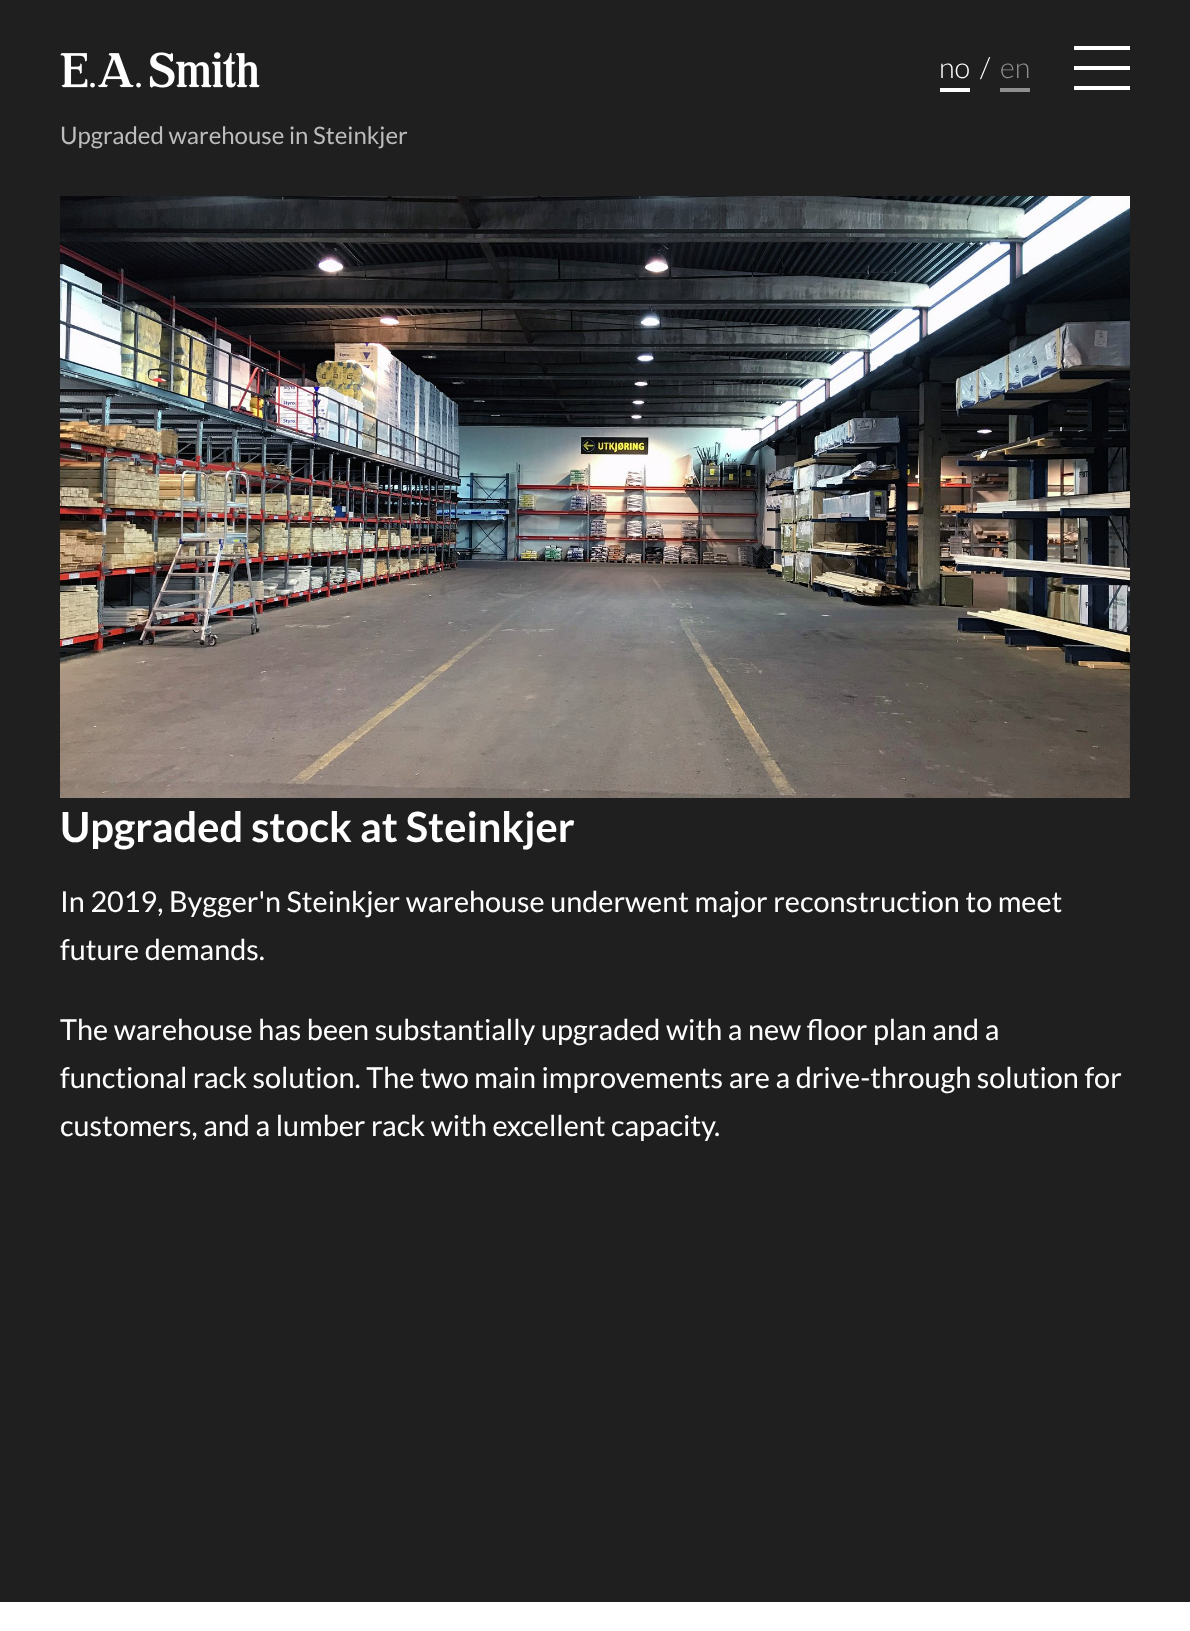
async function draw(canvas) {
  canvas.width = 1190;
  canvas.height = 1631;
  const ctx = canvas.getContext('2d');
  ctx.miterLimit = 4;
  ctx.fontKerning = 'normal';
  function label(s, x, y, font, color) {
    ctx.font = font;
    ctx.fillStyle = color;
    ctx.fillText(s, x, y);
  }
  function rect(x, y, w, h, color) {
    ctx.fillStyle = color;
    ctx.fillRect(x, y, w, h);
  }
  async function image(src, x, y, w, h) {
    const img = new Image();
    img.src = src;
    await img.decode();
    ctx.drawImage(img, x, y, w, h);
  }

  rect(0, 0, 1190, 1631, '#1f1f20');
  await image('assets/img1.png', 60, 52, 200, 36);
  label('no', 939, 78, '300 28.8px Lato', '#fff');
  rect(940, 88, 30, 4, '#fff');
  label('/', 980, 78, '300 28.8px Lato', '#fff');
  label('en', 1000, 78, '300 28.8px Lato', '#8f8f90');
  rect(1000, 88, 30, 4, '#8f8f90');
  rect(1074, 46, 56, 4, '#fff');
  rect(1074, 66, 56, 4, '#fff');
  rect(1074, 86, 56, 4, '#fff');
  label('Upgraded warehouse in Steinkjer', 60, 144, '24px Lato', '#bcbcbc');
  await image('assets/img2.png', 60, 196, 1070, 602);
  label('Upgraded stock at Steinkjer', 60, 842, 'bold 41.6px Lato', '#fff');
  label('In 2019, Bygger\'n Steinkjer warehouse underwent major reconstruction to meet', 60, 912, '28.8px Lato', '#fff');
  label('future demands.', 60, 960, '28.8px Lato', '#fff');
  label('The warehouse has been substantially upgraded with a new floor plan and a', 60, 1040, '28.8px Lato', '#fff');
  label('functional rack solution. The two main improvements are a drive-through solution for', 60, 1088, '28.8px Lato', '#fff');
  label('customers, and a lumber rack with excellent capacity.', 60, 1136, '28.8px Lato', '#fff');
  rect(0, 1602, 1190, 29, '#fff');
}

draw(document.querySelector('canvas'));
